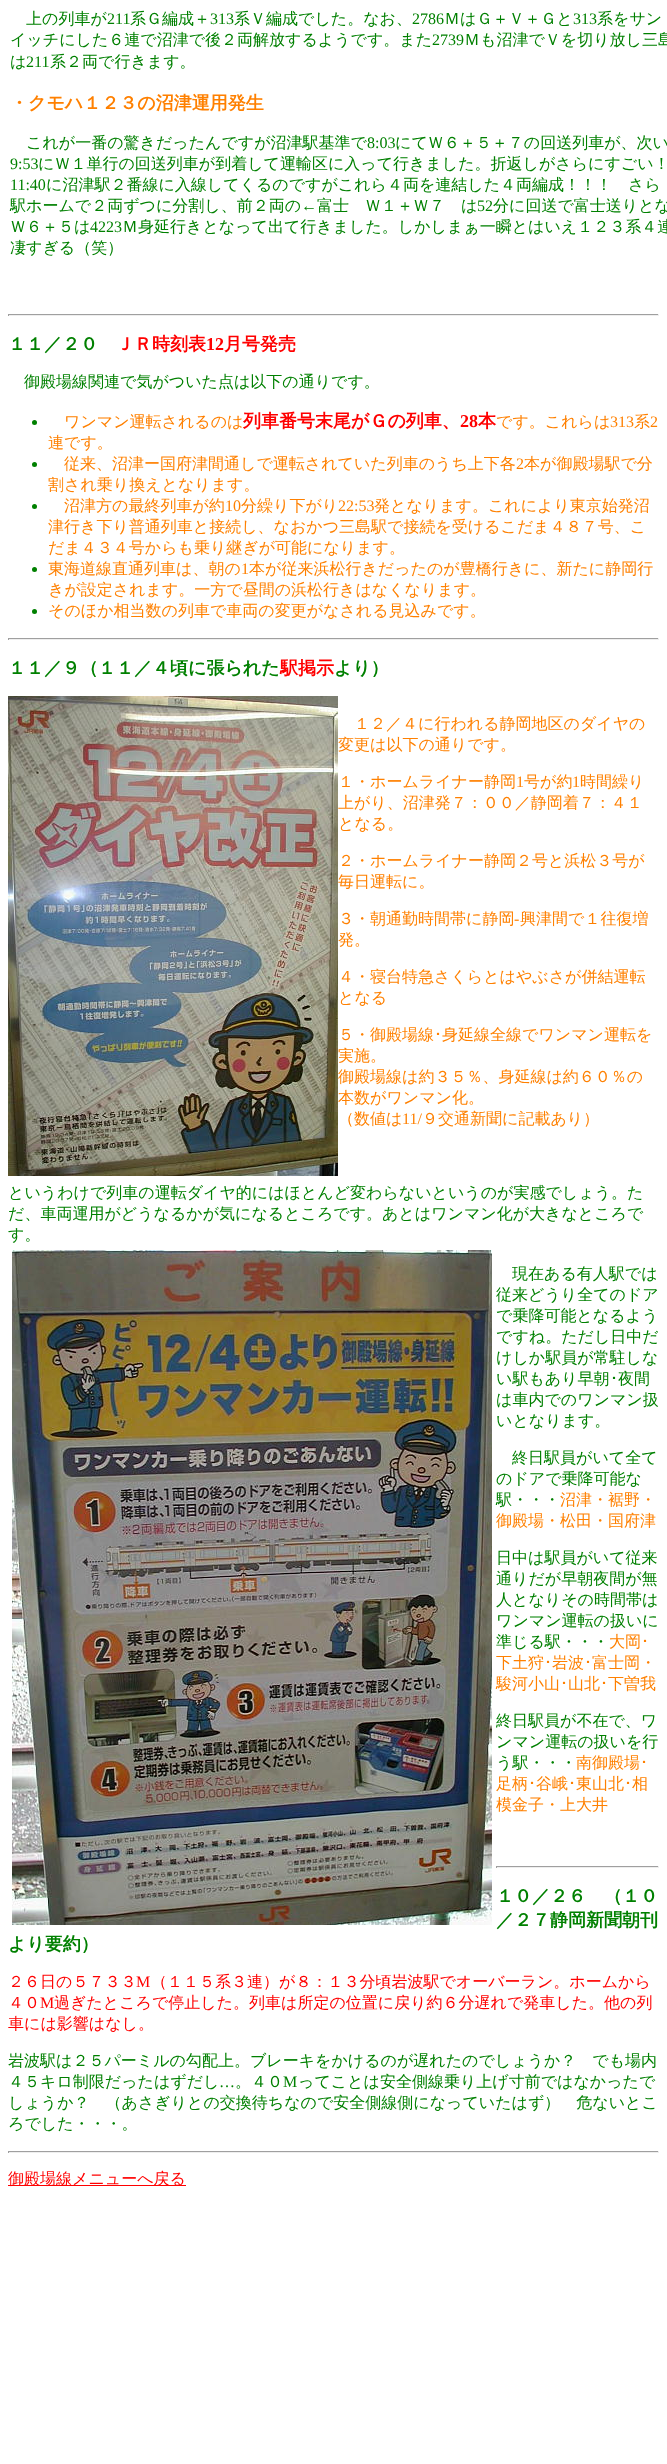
async function draw(canvas) {
  canvas.width = 667;
  canvas.height = 2464;
  const ctx = canvas.getContext('2d');
  ctx.miterLimit = 4;
  ctx.fontKerning = 'normal';
  function label(s, x, y, font, color) {
    ctx.font = font;
    ctx.fillStyle = color;
    ctx.fillText(s, x, y);
  }
  function rect(x, y, w, h, color) {
    ctx.fillStyle = color;
    ctx.fillRect(x, y, w, h);
  }
  async function image(src, x, y, w, h) {
    const img = new Image();
    img.src = src;
    await img.decode();
    ctx.drawImage(img, x, y, w, h);
  }

  rect(0, 0, 667, 2464, '#fff');
  label('上の列車が', 26, 24, '500 16px WenQuanYi Zen Hei', '#008000');
  label('211', 107, 24, '16px Liberation Serif', '#008000');
  label('系Ｇ編成＋', 130, 24, '500 16px WenQuanYi Zen Hei', '#008000');
  label('313', 210, 24, '16px Liberation Serif', '#008000');
  label('系Ｖ編成でした。なお、', 234, 24, '500 16px WenQuanYi Zen Hei', '#008000');
  label('2786', 412, 24, '16px Liberation Serif', '#008000');
  label('ＭはＧ＋Ｖ＋Ｇと', 444, 24, '500 16px WenQuanYi Zen Hei', '#008000');
  label('313', 573, 24, '16px Liberation Serif', '#008000');
  label('系をサン', 597, 24, '500 16px WenQuanYi Zen Hei', '#008000');
  label('イッチにした６連で沼津で後２両解放するようです。また', 10, 45, '500 16px WenQuanYi Zen Hei', '#008000');
  label('2739', 432, 45, '16px Liberation Serif', '#008000');
  label('Ｍも沼津でＶを切り放し三島', 464, 45, '500 16px WenQuanYi Zen Hei', '#008000');
  label('は', 10, 67, '500 16px WenQuanYi Zen Hei', '#008000');
  label('211', 26, 67, '16px Liberation Serif', '#008000');
  label('系２両で行きます。', 50, 67, '500 16px WenQuanYi Zen Hei', '#008000');
  label('・クモハ１２３の沼津運用発生', 10, 109, 'bold 18px WenQuanYi Zen Hei', '#ff8000');
  label('これが一番の驚きだったんですが沼津駅基準で', 26, 148, '500 16px WenQuanYi Zen Hei', '#008000');
  label('8:03', 367, 148, '16px Liberation Serif', '#008000');
  label('にてＷ６＋５＋７の回送列車が、次い', 395, 148, '500 16px WenQuanYi Zen Hei', '#008000');
  label('9:53', 10, 169, '16px Liberation Serif', '#008000');
  label('にＷ１単行の回送列車が到着して運輸区に入って行きました。折返しがさらにすごい！', 38, 169, '500 16px WenQuanYi Zen Hei', '#008000');
  label('11:40', 10, 190, '16px Liberation Serif', '#008000');
  label('に沼津駅２番線に入線してくるのですがこれら４両を連結した４両編成！！！　さら', 46, 190, '500 16px WenQuanYi Zen Hei', '#008000');
  label('駅ホームで２両ずつに分割し、前２両の', 10, 211, '500 16px WenQuanYi Zen Hei', '#008000');
  label('←', 301, 211, '16px Liberation Serif', '#008000');
  label('富士　Ｗ１＋Ｗ７　は', 317, 211, '500 16px WenQuanYi Zen Hei', '#008000');
  label('52', 477, 211, '16px Liberation Serif', '#008000');
  label('分に回送で富士送りとな', 493, 211, '500 16px WenQuanYi Zen Hei', '#008000');
  label('Ｗ６＋５は', 10, 232, '500 16px WenQuanYi Zen Hei', '#008000');
  label('4223', 90, 232, '16px Liberation Serif', '#008000');
  label('Ｍ身延行きとなって出て行きました。しかしまぁ一瞬とはいえ１２３系４連', 122, 232, '500 16px WenQuanYi Zen Hei', '#008000');
  label('凄すぎる（笑）', 10, 253, '500 16px WenQuanYi Zen Hei', '#008000');
  rect(8, 314, 651, 1, '#9f9f9f');
  rect(658, 314, 1, 2, '#eee');
  rect(8, 315, 651, 1, '#eee');
  rect(8, 314, 1, 2, '#9f9f9f');
  label('１１／２０', 8, 350, 'bold 18px WenQuanYi Zen Hei', '#008000');
  label('ＪＲ時刻表', 116, 350, 'bold 18px WenQuanYi Zen Hei', '#f00');
  label('12', 206, 350, 'bold 18px Liberation Serif', '#f00');
  label('月号発売', 224, 350, 'bold 18px WenQuanYi Zen Hei', '#f00');
  label('御殿場線関連で気がついた点は以下の通りです。', 24, 387, '500 16px WenQuanYi Zen Hei', '#008000');
  ctx.beginPath();
  ctx.arc(34.5, 422.5, 2.5, 0, 2 * Math.PI);
  ctx.fill();
  label('ワンマン運転されるのは', 64, 427, '500 16px WenQuanYi Zen Hei', '#ff8000');
  label('列車番号末尾がＧの列車、', 243, 427, 'bold 18px WenQuanYi Zen Hei', '#f00');
  label('28', 460, 427, 'bold 18px Liberation Serif', '#f00');
  label('本', 478, 427, 'bold 18px WenQuanYi Zen Hei', '#f00');
  label('です。これらは', 496, 427, '500 16px WenQuanYi Zen Hei', '#ff8000');
  label('313', 610, 427, '16px Liberation Serif', '#ff8000');
  label('系', 634, 427, '500 16px WenQuanYi Zen Hei', '#ff8000');
  label('2', 650, 427, '16px Liberation Serif', '#ff8000');
  label('連です。', 48, 448, '500 16px WenQuanYi Zen Hei', '#ff8000');
  ctx.fillStyle = '#008000';
  ctx.beginPath();
  ctx.arc(34.5, 464.5, 2.5, 0, 2 * Math.PI);
  ctx.fill();
  label('従来、沼津ー国府津間通しで運転されていた列車のうち上下各', 64, 469, '500 16px WenQuanYi Zen Hei', '#ff8000');
  label('2', 516, 469, '16px Liberation Serif', '#ff8000');
  label('本が御殿場駅で分', 524, 469, '500 16px WenQuanYi Zen Hei', '#ff8000');
  label('割され乗り換えとなります。', 48, 490, '500 16px WenQuanYi Zen Hei', '#ff8000');
  ctx.fillStyle = '#008000';
  ctx.beginPath();
  ctx.arc(34.5, 506.5, 2.5, 0, 2 * Math.PI);
  ctx.fill();
  label('沼津方の最終列車が約', 64, 511, '500 16px WenQuanYi Zen Hei', '#ff8000');
  label('10', 225, 511, '16px Liberation Serif', '#ff8000');
  label('分繰り下がり', 241, 511, '500 16px WenQuanYi Zen Hei', '#ff8000');
  label('22:53', 338, 511, '16px Liberation Serif', '#ff8000');
  label('発となります。これにより東京始発沼', 374, 511, '500 16px WenQuanYi Zen Hei', '#ff8000');
  label('津行き下り普通列車と接続し、なおかつ三島駅で接続を受けるこだま４８７号、こ', 48, 532, '500 16px WenQuanYi Zen Hei', '#ff8000');
  label('だま４３４号からも乗り継ぎが可能になります。', 48, 553, '500 16px WenQuanYi Zen Hei', '#ff8000');
  ctx.fillStyle = '#008000';
  ctx.beginPath();
  ctx.arc(34.5, 569.5, 2.5, 0, 2 * Math.PI);
  ctx.fill();
  label('東海道線直通列車は、朝の', 48, 574, '500 16px WenQuanYi Zen Hei', '#ff8000');
  label('1', 241, 574, '16px Liberation Serif', '#ff8000');
  label('本が従来浜松行きだったのが豊橋行きに、新たに静岡行', 249, 574, '500 16px WenQuanYi Zen Hei', '#ff8000');
  label('きが設定されます。一方で昼間の浜松行きはなくなります。', 48, 595, '500 16px WenQuanYi Zen Hei', '#ff8000');
  ctx.fillStyle = '#008000';
  ctx.beginPath();
  ctx.arc(34.5, 611.5, 2.5, 0, 2 * Math.PI);
  ctx.fill();
  label('そのほか相当数の列車で車両の変更がなされる見込みです。', 48, 616, '500 16px WenQuanYi Zen Hei', '#ff8000');
  rect(8, 638, 651, 1, '#9f9f9f');
  rect(658, 638, 1, 2, '#eee');
  rect(8, 639, 651, 1, '#eee');
  rect(8, 638, 1, 2, '#9f9f9f');
  label('１１／９（１１／４頃に張られた', 8, 674, 'bold 18px WenQuanYi Zen Hei', '#008000');
  label('駅掲示', 280, 674, 'bold 18px WenQuanYi Zen Hei', '#f00');
  label('より）', 334, 674, 'bold 18px WenQuanYi Zen Hei', '#008000');
  await image('assets/img1.png', 8, 696, 330, 480);
  label('１２／４に行われる静岡地区のダイヤの', 354, 729, '500 16px WenQuanYi Zen Hei', '#ff8000');
  label('変更は以下の通りです。', 338, 750, '500 16px WenQuanYi Zen Hei', '#ff8000');
  label('１・ホームライナー静岡', 338, 787, '500 16px WenQuanYi Zen Hei', '#ff8000');
  label('1', 516, 787, '16px Liberation Serif', '#ff8000');
  label('号が約', 524, 787, '500 16px WenQuanYi Zen Hei', '#ff8000');
  label('1', 572, 787, '16px Liberation Serif', '#ff8000');
  label('時間繰り', 580, 787, '500 16px WenQuanYi Zen Hei', '#ff8000');
  label('上がり、沼津発７：００／静岡着７：４１', 338, 808, '500 16px WenQuanYi Zen Hei', '#ff8000');
  label('となる。', 338, 829, '500 16px WenQuanYi Zen Hei', '#ff8000');
  label('２・ホームライナー静岡２号と浜松３号が', 338, 866, '500 16px WenQuanYi Zen Hei', '#ff8000');
  label('毎日運転に。', 338, 887, '500 16px WenQuanYi Zen Hei', '#ff8000');
  label('３・朝通勤時間帯に静岡', 338, 924, '500 16px WenQuanYi Zen Hei', '#ff8000');
  label('-', 514, 924, '16px Liberation Serif', '#ff8000');
  label('興津間で１往復増', 520, 924, '500 16px WenQuanYi Zen Hei', '#ff8000');
  label('発。', 338, 945, '500 16px WenQuanYi Zen Hei', '#ff8000');
  label('４・寝台特急さくらとはやぶさが併結運転', 338, 982, '500 16px WenQuanYi Zen Hei', '#ff8000');
  label('となる', 338, 1003, '500 16px WenQuanYi Zen Hei', '#ff8000');
  label('５・御殿場線', 338, 1040, '500 16px WenQuanYi Zen Hei', '#ff8000');
  label('･', 434, 1040, '16px IPAGothic', '#ff8000');
  label('身延線全線でワンマン運転を', 442, 1040, '500 16px WenQuanYi Zen Hei', '#ff8000');
  label('実施。', 338, 1061, '500 16px WenQuanYi Zen Hei', '#ff8000');
  label('御殿場線は約３５％、身延線は約６０％の', 338, 1082, '500 16px WenQuanYi Zen Hei', '#ff8000');
  label('本数がワンマン化。', 338, 1103, '500 16px WenQuanYi Zen Hei', '#ff8000');
  label('（数値は', 338, 1124, '500 16px WenQuanYi Zen Hei', '#ff8000');
  label('11/', 402, 1124, '16px Liberation Serif', '#ff8000');
  label('９交通新聞に記載あり）', 422, 1124, '500 16px WenQuanYi Zen Hei', '#ff8000');
  label('というわけで列車の運転ダイヤ的にはほとんど変わらないというのが実感でしょう。た', 8, 1198, '500 16px WenQuanYi Zen Hei', '#008000');
  label('だ、車両運用がどうなるかが気になるところです。あとはワンマン化が大きなところで', 8, 1219, '500 16px WenQuanYi Zen Hei', '#008000');
  label('す。', 8, 1240, '500 16px WenQuanYi Zen Hei', '#008000');
  await image('assets/img2.png', 12, 1250, 480, 675);
  label('現在ある有人駅では', 512, 1279, '500 16px WenQuanYi Zen Hei', '#008000');
  label('従来どうり全てのドア', 496, 1300, '500 16px WenQuanYi Zen Hei', '#008000');
  label('で乗降可能となるよう', 496, 1321, '500 16px WenQuanYi Zen Hei', '#008000');
  label('ですね。ただし日中だ', 496, 1342, '500 16px WenQuanYi Zen Hei', '#008000');
  label('けしか駅員が常駐しな', 496, 1363, '500 16px WenQuanYi Zen Hei', '#008000');
  label('い駅もあり早朝', 496, 1384, '500 16px WenQuanYi Zen Hei', '#008000');
  label('･', 610, 1384, '16px IPAGothic', '#008000');
  label('夜間', 618, 1384, '500 16px WenQuanYi Zen Hei', '#008000');
  label('は車内でのワンマン扱', 496, 1405, '500 16px WenQuanYi Zen Hei', '#008000');
  label('いとなります。', 496, 1426, '500 16px WenQuanYi Zen Hei', '#008000');
  label('終日駅員がいて全て', 512, 1463, '500 16px WenQuanYi Zen Hei', '#008000');
  label('のドアで乗降可能な', 496, 1484, '500 16px WenQuanYi Zen Hei', '#008000');
  label('駅・・・', 496, 1505, '500 16px WenQuanYi Zen Hei', '#008000');
  label('沼津・裾野・', 560, 1505, '500 16px WenQuanYi Zen Hei', '#ff8000');
  label('御殿場・松田・国府津', 496, 1526, '500 16px WenQuanYi Zen Hei', '#ff8000');
  label('日中は駅員がいて従来', 496, 1563, '500 16px WenQuanYi Zen Hei', '#008000');
  label('通りだが早朝夜間が無', 496, 1584, '500 16px WenQuanYi Zen Hei', '#008000');
  label('人となりその時間帯は', 496, 1605, '500 16px WenQuanYi Zen Hei', '#008000');
  label('ワンマン運転の扱いに', 496, 1626, '500 16px WenQuanYi Zen Hei', '#008000');
  label('準じる駅・・・', 496, 1647, '500 16px WenQuanYi Zen Hei', '#008000');
  label('大岡', 609, 1647, '500 16px WenQuanYi Zen Hei', '#ff8000');
  label('･', 641, 1647, '16px IPAGothic', '#ff8000');
  label('下土狩', 496, 1668, '500 16px WenQuanYi Zen Hei', '#ff8000');
  label('･', 544, 1668, '16px IPAGothic', '#ff8000');
  label('岩波', 552, 1668, '500 16px WenQuanYi Zen Hei', '#ff8000');
  label('･', 584, 1668, '16px IPAGothic', '#ff8000');
  label('富士岡・', 592, 1668, '500 16px WenQuanYi Zen Hei', '#ff8000');
  label('駿河小山', 496, 1689, '500 16px WenQuanYi Zen Hei', '#ff8000');
  label('･', 560, 1689, '16px IPAGothic', '#ff8000');
  label('山北', 568, 1689, '500 16px WenQuanYi Zen Hei', '#ff8000');
  label('･', 600, 1689, '16px IPAGothic', '#ff8000');
  label('下曽我', 608, 1689, '500 16px WenQuanYi Zen Hei', '#ff8000');
  label('終日駅員が不在で、ワ', 496, 1726, '500 16px WenQuanYi Zen Hei', '#008000');
  label('ンマン運転の扱いを行', 496, 1747, '500 16px WenQuanYi Zen Hei', '#008000');
  label('う駅・・・', 496, 1768, '500 16px WenQuanYi Zen Hei', '#008000');
  label('南御殿場', 576, 1768, '500 16px WenQuanYi Zen Hei', '#ff8000');
  label('･', 640, 1768, '16px IPAGothic', '#ff8000');
  label('足柄', 496, 1789, '500 16px WenQuanYi Zen Hei', '#ff8000');
  label('･', 528, 1789, '16px IPAGothic', '#ff8000');
  label('谷峨', 536, 1789, '500 16px WenQuanYi Zen Hei', '#ff8000');
  label('･', 568, 1789, '16px IPAGothic', '#ff8000');
  label('東山北', 576, 1789, '500 16px WenQuanYi Zen Hei', '#ff8000');
  label('･', 624, 1789, '16px IPAGothic', '#ff8000');
  label('相', 632, 1789, '500 16px WenQuanYi Zen Hei', '#ff8000');
  label('模金子・上大井', 496, 1810, '500 16px WenQuanYi Zen Hei', '#ff8000');
  rect(496, 1866, 163, 1, '#9f9f9f');
  rect(658, 1866, 1, 2, '#eee');
  rect(496, 1867, 163, 1, '#eee');
  rect(496, 1866, 1, 2, '#9f9f9f');
  label('１０／２６　（１０', 496, 1902, 'bold 18px WenQuanYi Zen Hei', '#008000');
  label('／２７静岡新聞朝刊', 496, 1926, 'bold 18px WenQuanYi Zen Hei', '#008000');
  label('より要約）', 8, 1950, 'bold 18px WenQuanYi Zen Hei', '#008000');
  label('２６日の５７３３', 8, 1987, '500 16px WenQuanYi Zen Hei', '#f00');
  label('M', 136, 1987, '16px Liberation Serif', '#f00');
  label('（１１５系３連）が８：１３分頃岩波駅でオーバーラン。ホームから', 151, 1987, '500 16px WenQuanYi Zen Hei', '#f00');
  label('４０', 8, 2008, '500 16px WenQuanYi Zen Hei', '#f00');
  label('M', 40, 2008, '16px Liberation Serif', '#f00');
  label('過ぎたところで停止した。列車は所定の位置に戻り約６分遅れで発車した。他の列', 54, 2008, '500 16px WenQuanYi Zen Hei', '#f00');
  label('車には影響はなし。', 8, 2029, '500 16px WenQuanYi Zen Hei', '#f00');
  label('岩波駅は２５パーミルの勾配上。ブレーキをかけるのが遅れたのでしょうか？　でも場内', 8, 2066, '500 16px WenQuanYi Zen Hei', '#008000');
  label('４５キロ制限だったはずだし', 8, 2087, '500 16px WenQuanYi Zen Hei', '#008000');
  label('…', 219, 2087, '16px Liberation Serif', '#008000');
  label('。４０', 235, 2087, '500 16px WenQuanYi Zen Hei', '#008000');
  label('M', 283, 2087, '16px Liberation Serif', '#008000');
  label('ってことは安全側線乗り上げ寸前ではなかったで', 298, 2087, '500 16px WenQuanYi Zen Hei', '#008000');
  label('しょうか？　（あさぎりとの交換待ちなので安全側線側になっていたはず）　危ないとこ', 8, 2108, '500 16px WenQuanYi Zen Hei', '#008000');
  label('ろでした・・・。', 8, 2129, '500 16px WenQuanYi Zen Hei', '#008000');
  rect(8, 2151, 651, 1, '#9f9f9f');
  rect(658, 2151, 1, 2, '#eee');
  rect(8, 2152, 651, 1, '#eee');
  rect(8, 2151, 1, 2, '#9f9f9f');
  rect(8, 2185, 178, 1, '#f00');
  label('御殿場線メニューへ戻る', 8, 2184, '500 16px WenQuanYi Zen Hei', '#f00');
}

draw(document.querySelector('canvas'));
